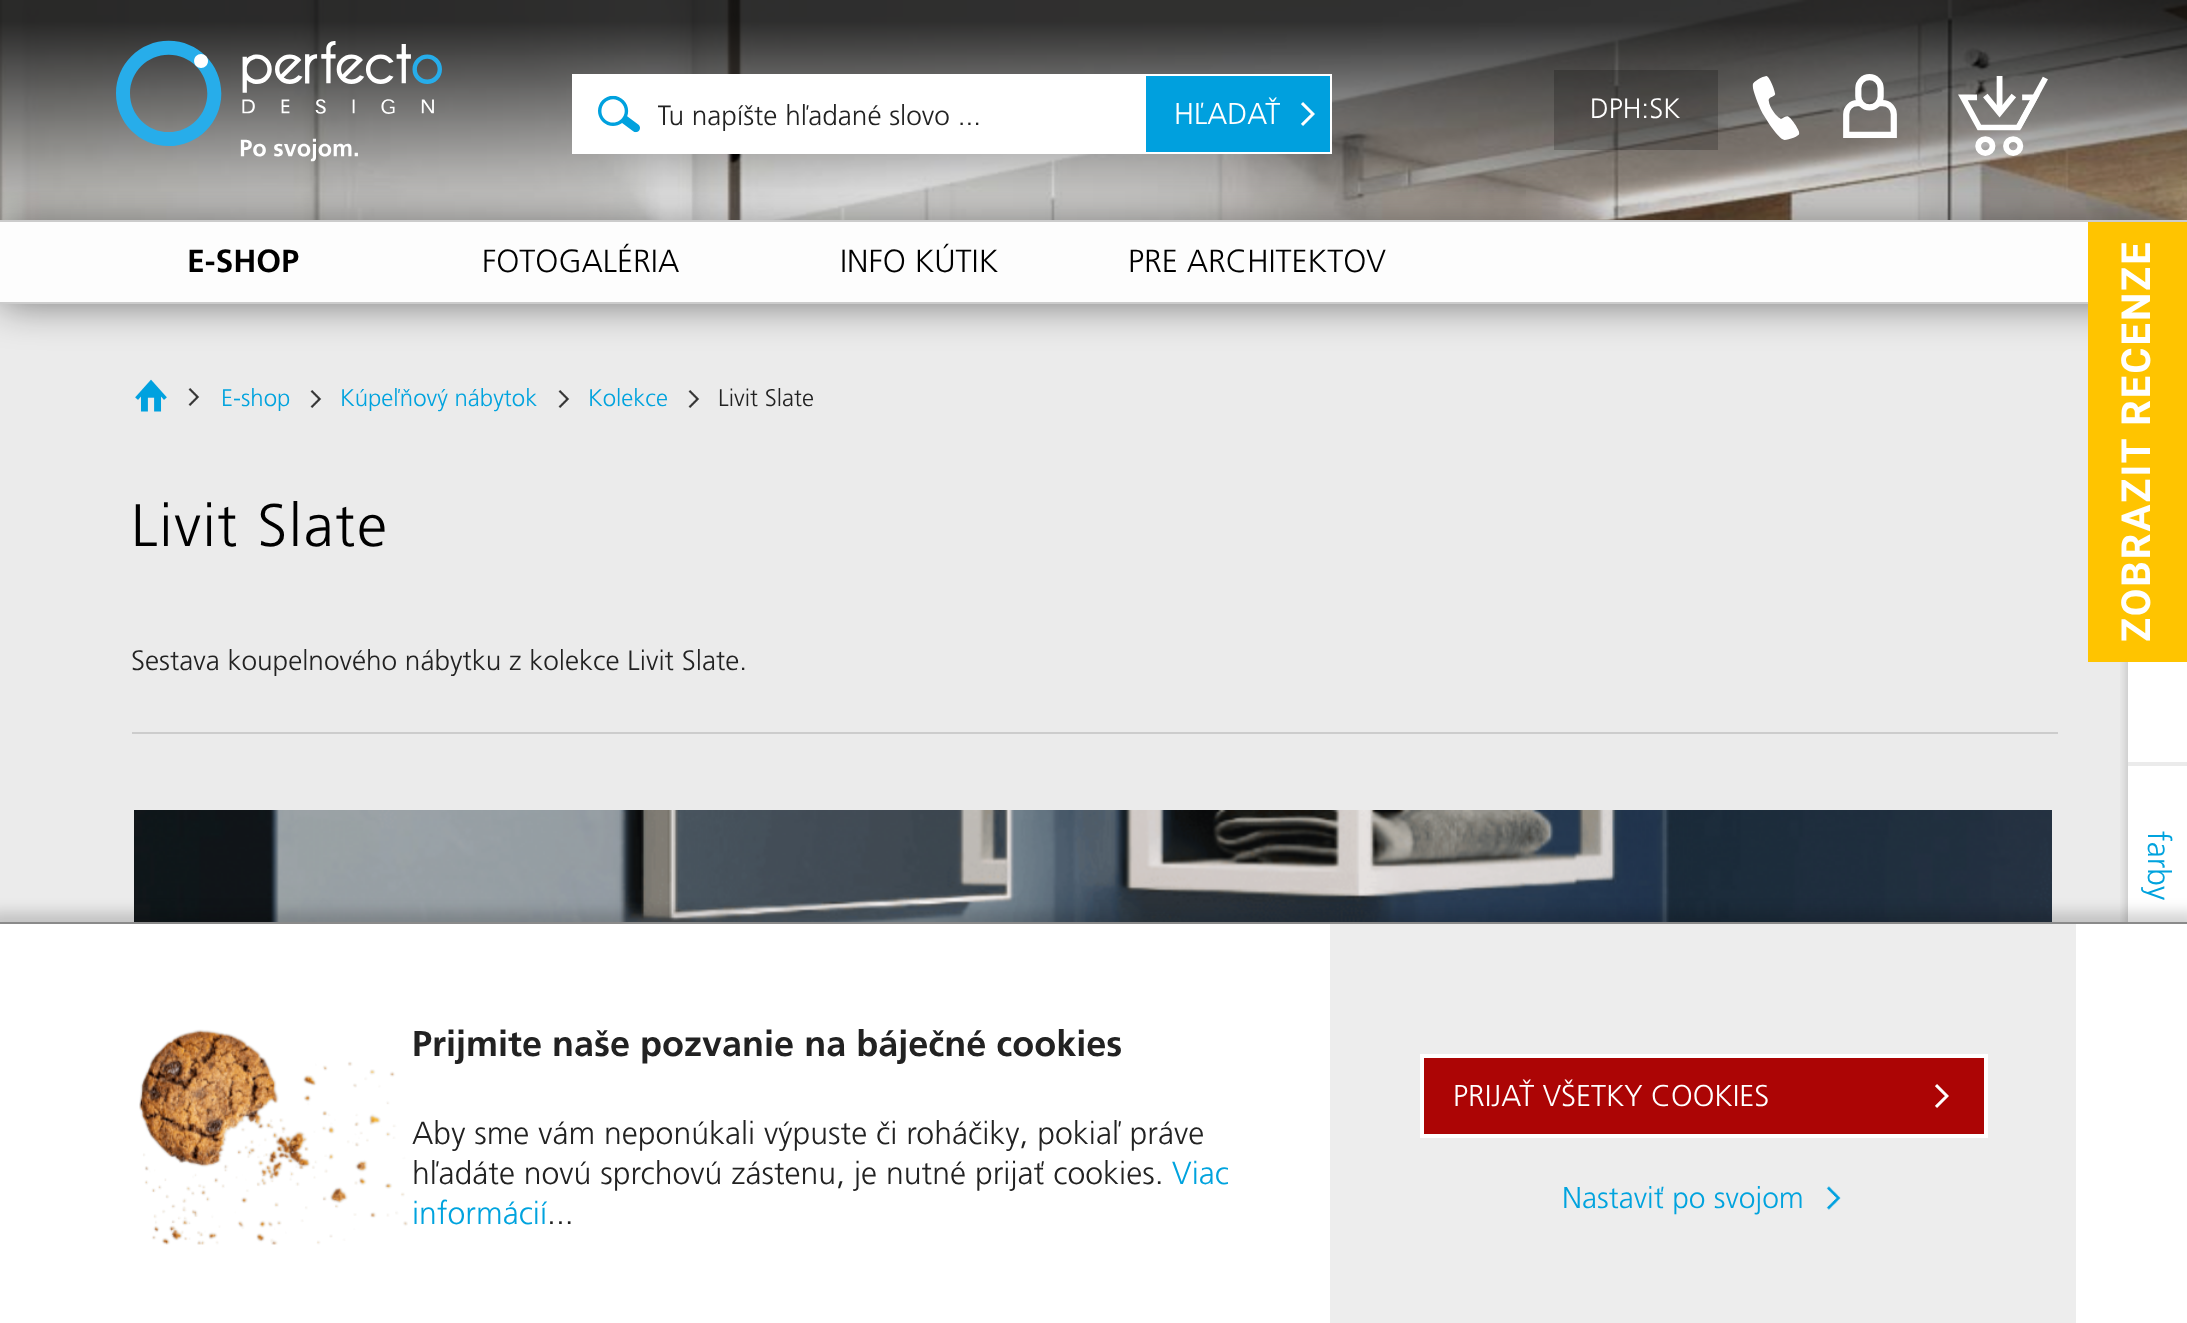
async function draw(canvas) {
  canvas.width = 2187;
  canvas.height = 1323;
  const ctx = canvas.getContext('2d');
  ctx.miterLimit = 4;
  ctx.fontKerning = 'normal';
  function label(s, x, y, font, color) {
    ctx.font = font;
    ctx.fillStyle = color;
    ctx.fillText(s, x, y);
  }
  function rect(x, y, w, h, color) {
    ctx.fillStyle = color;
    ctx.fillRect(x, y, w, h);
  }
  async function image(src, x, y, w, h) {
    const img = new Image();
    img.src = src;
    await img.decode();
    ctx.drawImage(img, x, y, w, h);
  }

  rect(0, 0, 2187, 1323, '#fff');
  await image('assets/img1.png', 0, 0, 2187, 220);
  rect(0, 304, 2187, 618, '#ebebeb');
  ctx.fillStyle = '#00000080';
  ctx.filter = 'blur(20px)';
  ctx.beginPath();
  ctx.rect(0, 220, 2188, 84);
  ctx.fill();
  ctx.filter = 'none';
  await image('assets/img2.png', 116, 40, 326, 122);
  rect(572, 74, 760, 80, '#fff');
  await image('assets/img3.png', 598, 95, 42, 38);
  ctx.save();
  ctx.beginPath();
  ctx.rect(658, 100, 472, 34);
  ctx.clip();
  label('Tu napíšte hľadané slovo ...', 657, 125, '300 28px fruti', '#222');
  ctx.restore();
  rect(1146, 76, 184, 76, '#00a0de');
  await image('assets/img4.png', 1301, 102, 14, 24);
  label('HĽADAŤ', 1174, 124, '300 30px fruti', '#fff');
  await image('assets/img5.png', 1958, 76, 90, 80);
  rect(1554, 70, 164, 80, '#00000033');
  label('DPH:SK', 1590, 118, '300 28px fruti', '#fff');
  await image('assets/img6.png', 1752, 76, 48, 64);
  await image('assets/img7.png', 1843, 74, 54, 64);
  rect(0, 222, 2088, 80, '#fdfdfd');
  rect(0, 220, 2187, 2, '#ccc');
  rect(0, 302, 2088, 2, '#ccc');
  label('E-SHOP', 187, 272, 'bold 32px fruti', '#000');
  label('FOTOGALÉRIA', 482, 272, '300 32px fruti', '#000');
  label('INFO KÚTIK', 840, 272, '300 32px fruti', '#000');
  label('PRE ARCHITEKTOV', 1128, 272, '300 32px fruti', '#000');
  ctx.save();
  ctx.beginPath();
  ctx.rect(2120, 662, 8, 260);
  ctx.clip();
  ctx.fillStyle = '#0000002b';
  ctx.filter = 'blur(5px)';
  ctx.beginPath();
  ctx.rect(2126, 356, 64, 612);
  ctx.fill();
  ctx.filter = 'none';
  ctx.restore();
  rect(2088, 222, 99, 440, '#ffc400');
  ctx.letterSpacing = '2px';
  ctx.font = 'bold 40px Roboto';
  ctx.fillStyle = '#fff';
  ctx.save();
  ctx.translate(2150, 642);
  ctx.rotate(-90 * Math.PI / 180);
  ctx.fillText('ZOBRAZIT RECENZE', 0, 0);
  ctx.restore();
  await image('assets/img8.png', 188, 388, 12, 18);
  await image('assets/img9.png', 135, 379, 32, 33);
  ctx.letterSpacing = '0px';
  label('E-shop', 221, 406, '300 24px fruti', '#00a3de');
  await image('assets/img8.png', 310, 390, 12, 18);
  label('Kúpeľňový nábytok', 340, 406, '300 24px fruti', '#00a3de');
  await image('assets/img8.png', 558, 390, 12, 18);
  label('Kolekce', 588, 406, '300 24px fruti', '#00a3de');
  await image('assets/img8.png', 688, 390, 12, 18);
  label('Livit Slate', 718, 406, '300 24px fruti', '#222');
  ctx.letterSpacing = '1.6px';
  label('Livit Slate', 131, 546, '300 60px fruti', '#000');
  rect(132, 732, 1926, 2, '#ccc');
  ctx.letterSpacing = '0px';
  label('Sestava koupelnového nábytku z kolekce Livit Slate.', 131, 670, '300 28px fruti', '#222');
  await image('assets/img10.png', 134, 810, 1918, 112);
  rect(2128, 662, 59, 100, '#fff');
  rect(2128, 766, 59, 156, '#fff');
  ctx.font = '300 32px fruti';
  ctx.fillStyle = '#00a3de';
  ctx.save();
  ctx.translate(2148, 831);
  ctx.rotate(90 * Math.PI / 180);
  ctx.fillText('farby', 0, 0);
  ctx.restore();
  ctx.fillStyle = '#0000002b';
  ctx.filter = 'blur(7px)';
  ctx.beginPath();
  ctx.rect(-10, 912, 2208, 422);
  ctx.fill();
  ctx.filter = 'none';
  rect(0, 924, 2187, 399, '#fff');
  rect(0, 922, 2187, 2, '#8a8a8a');
  await image('assets/img11.png', 139, 1029, 269, 216);
  label('Prijmite naše pozvanie na báječné cookies', 412, 1056, 'bold 36px fruti', '#222');
  label('Aby sme vám neponúkali výpuste či roháčiky, pokiaľ práve', 412, 1144, '300 32px fruti', '#222');
  label('hľadáte novú sprchovú zástenu, je nutné prijať cookies.', 412, 1184, '300 32px fruti', '#222');
  label('Viac', 1172, 1184, '300 32px fruti', '#00a3de');
  label('informácií', 412, 1224, '300 32px fruti', '#00a3de');
  label('...', 547, 1224, '300 32px fruti', '#222');
  rect(1330, 924, 746, 399, '#ededed');
  rect(1424, 1058, 560, 76, '#ac0505');
  await image('assets/img12.png', 1935, 1084, 14, 24);
  ctx.strokeStyle = '#fff';
  ctx.lineWidth = 4;
  ctx.strokeRect(1422, 1056, 564, 80);
  label('PRIJAŤ VŠETKY COOKIES', 1453, 1106, '300 30px fruti', '#fff');
  await image('assets/img13.png', 1826, 1186, 15, 24);
  label('Nastaviť po svojom', 1562, 1208, '300 30px fruti', '#00a3de');
}

draw(document.querySelector('canvas'));
